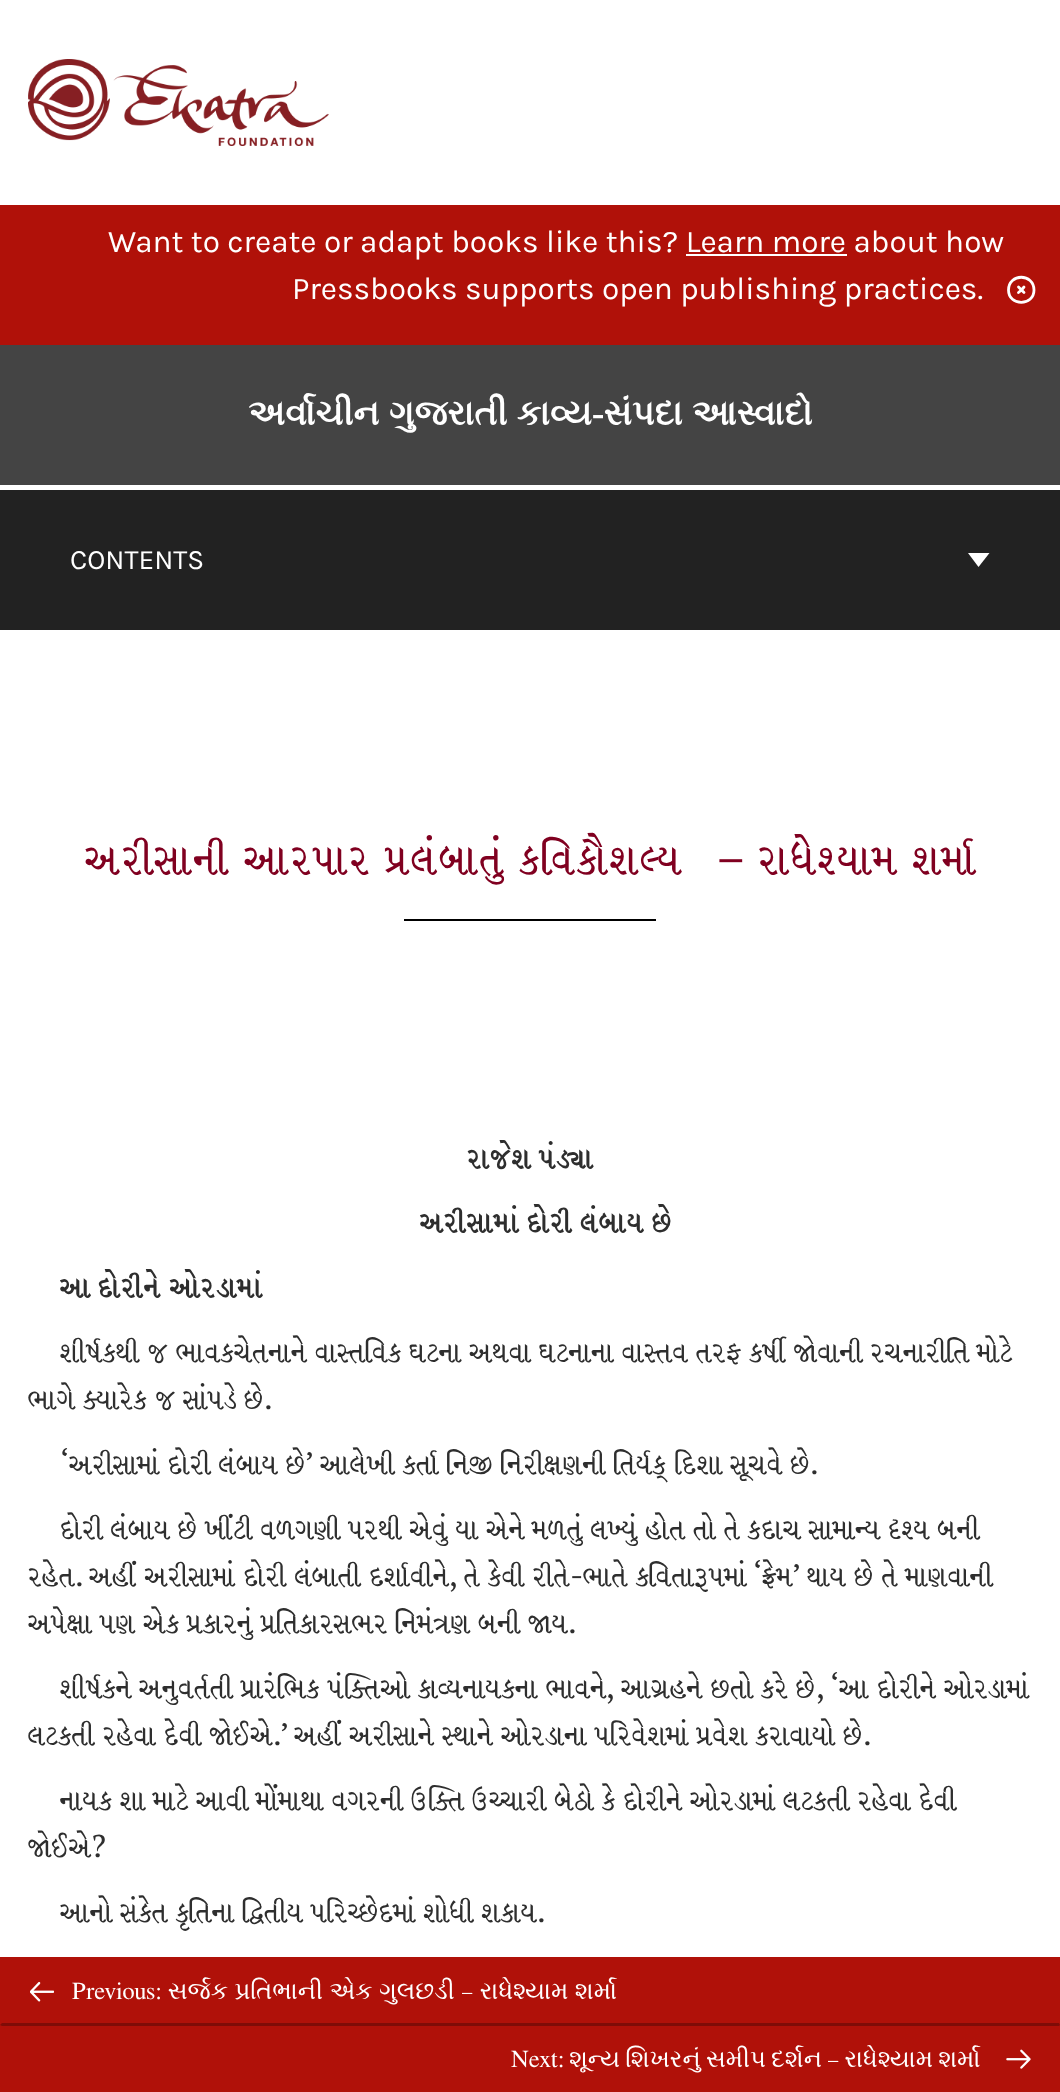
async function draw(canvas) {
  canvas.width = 1060;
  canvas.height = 2092;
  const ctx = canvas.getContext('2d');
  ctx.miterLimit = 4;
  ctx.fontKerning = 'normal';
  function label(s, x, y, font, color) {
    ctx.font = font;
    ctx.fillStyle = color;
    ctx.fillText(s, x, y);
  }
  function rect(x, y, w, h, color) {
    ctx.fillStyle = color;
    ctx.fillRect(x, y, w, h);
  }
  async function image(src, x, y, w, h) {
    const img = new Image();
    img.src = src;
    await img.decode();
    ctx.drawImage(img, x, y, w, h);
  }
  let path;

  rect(0, 0, 1060, 2092, '#fff');
  await image('assets/img1.png', 28, 59, 301, 87);
  rect(0, 205, 1060, 140, '#b01109');
  label('Want to create or adapt books like this? Learn more about how', 108, 252, '31.5px Karla', '#fff');
  rect(686, 254, 161, 2, '#fff');
  label('Pressbooks supports open publishing practices.', 292, 299, '31.5px Karla', '#fff');
  path = new Path2D('M1018.5 292.5L1021.5 290M1021.5 290L1024 287M1021.5 290L1018.5 287M1021.5 290L1024 292.5M1034 290C1034 306.5 1008.5 306.5 1008.5 290C1008.5 273 1034 273 1034 290Z');
  ctx.strokeStyle = '#fff';
  ctx.lineWidth = 2.8;
  ctx.lineCap = 'round';
  ctx.lineJoin = 'round';
  ctx.stroke(path);
  rect(0, 490, 1060, 140, '#222');
  rect(0, 345, 1060, 140, '#444');
  ctx.wordSpacing = '0.5px';
  label('અર્વાચીન ગુજરાતી કાવ્ય-સંપદા આસ્વાદો', 248, 425, 'bold 35px FreeSerif', '#fff');
  ctx.wordSpacing = '0px';
  label('CONTENTS', 70, 569, '28px Karla', '#fff');
  path = new Path2D('M978.5 567L968 553H989.5Z');
  ctx.fill(path, 'evenodd');
  ctx.letterSpacing = '1.75px';
  ctx.wordSpacing = '-1.5px';
  label('અરીસાની આરપાર પ્રલંબાતું કવિકૌશલ્ય', 85, 874, '47.25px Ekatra', '#800020');
  ctx.wordSpacing = '0px';
  label('–', 716, 874, '47.25px PT Serif', '#800020');
  ctx.wordSpacing = '-1.5px';
  label('રાધેશ્યામ શર્મા', 758, 874, '47.25px Ekatra', '#800020');
  rect(404, 919, 252, 2, '#000');
  ctx.letterSpacing = '0px';
  ctx.wordSpacing = '0px';
  label('રાજેશ', 467, 1168, 'bold 31.5px Ekatra', '#2e2e2e');
  label('પંડ્યા', 539, 1168, 'bold 31.5px Ekatra', '#2e2e2e');
  label('અરીસામાં', 420, 1232, 'bold 31.5px Ekatra', '#2e2e2e');
  label('દોરી', 527, 1232, 'bold 31.5px Ekatra', '#2e2e2e');
  label('લંબાય', 580, 1232, 'bold 31.5px Ekatra', '#2e2e2e');
  label('છે', 652, 1232, 'bold 31.5px Ekatra', '#2e2e2e');
  label('આ', 60, 1297, 'bold 31.5px Ekatra', '#2e2e2e');
  label('દોરીને', 98, 1297, 'bold 31.5px Ekatra', '#2e2e2e');
  label('ઓરડામાં', 169, 1297, 'bold 31.5px Ekatra', '#2e2e2e');
  ctx.wordSpacing = '-1.4px';
  label('શીર્ષકથી જ ભાવકચેતનાને વાસ્તવિક ઘટના અથવા ઘટનાના વાસ્તવ તરફ કર્ષી જોવાની રચનારીતિ મોટે', 60, 1362, '31.5px Ekatra', '#2e2e2e');
  label('ભાગે ક્યારેક જ સાંપડે છે', 28, 1409, '31.5px Ekatra', '#2e2e2e');
  ctx.wordSpacing = '0px';
  label('.', 264, 1409, '31.5px PT Serif', '#2e2e2e');
  label('‘', 60, 1474, '31.5px PT Serif', '#2e2e2e');
  ctx.wordSpacing = '-1.25px';
  label('અરીસામાં દોરી લંબાય છે', 69, 1474, '31.5px Ekatra', '#2e2e2e');
  ctx.wordSpacing = '0px';
  label('’', 305, 1474, '31.5px PT Serif', '#2e2e2e');
  ctx.wordSpacing = '-1.25px';
  label('આલેખી કર્તા નિજી નિરીક્ષણની તિર્યક્ દિશા સૂચવે છે', 320, 1474, '31.5px Ekatra', '#2e2e2e');
  ctx.wordSpacing = '0px';
  label('.', 810, 1474, '31.5px PT Serif', '#2e2e2e');
  ctx.wordSpacing = '-1.4px';
  label('દોરી લંબાય છે ખીંટી વળગણી પરથી એવું યા એને મળતું લખ્યું હોત તો તે કદાચ સામાન્ય દૃશ્ય બની', 60, 1539, '31.5px Ekatra', '#2e2e2e');
  ctx.wordSpacing = '0px';
  label('રહેત', 28, 1586, '31.5px Ekatra', '#2e2e2e');
  ctx.wordSpacing = '-1px';
  label('અહીં અરીસામાં દોરી લંબાતી દર્શાવીને', 89, 1586, '31.5px Ekatra', '#2e2e2e');
  ctx.wordSpacing = '0px';
  label(',', 449, 1586, '31.5px PT Serif', '#2e2e2e');
  ctx.wordSpacing = '-1px';
  label('તે કેવી રીતે', 464, 1586, '31.5px Ekatra', '#2e2e2e');
  label('ભાતે કવિતારૂપમાં', 583, 1586, '31.5px Ekatra', '#2e2e2e');
  ctx.wordSpacing = '0px';
  label('‘', 753, 1586, '31.5px PT Serif', '#2e2e2e');
  label('ફ્રેમ', 762, 1586, '31.5px Ekatra', '#2e2e2e');
  ctx.wordSpacing = '-1px';
  label('થાય છે તે માણવાની', 807, 1586, '31.5px Ekatra', '#2e2e2e');
  ctx.wordSpacing = '0px';
  label('’', 792, 1586, '31.5px PT Serif', '#2e2e2e');
  label('-', 570, 1586, '31.5px PT Serif', '#2e2e2e');
  label('.', 75, 1586, '31.5px PT Serif', '#2e2e2e');
  ctx.wordSpacing = '-1.4px';
  label('અપેક્ષા પણ એક પ્રકારનું પ્રતિકારસભર નિમંત્રણ બની જાય', 28, 1633, '31.5px Ekatra', '#2e2e2e');
  ctx.wordSpacing = '0px';
  label('.', 568, 1633, '31.5px PT Serif', '#2e2e2e');
  label('શીર્ષકને', 60, 1698, '31.5px Ekatra', '#2e2e2e');
  label('અનુવર્તતી', 139, 1698, '31.5px Ekatra', '#2e2e2e');
  label('પ્રારંભિક', 241, 1698, '31.5px Ekatra', '#2e2e2e');
  label('પંક્તિઓ', 328, 1698, '31.5px Ekatra', '#2e2e2e');
  label('કાવ્યનાયકના', 418, 1698, '31.5px Ekatra', '#2e2e2e');
  label('ભાવને', 546, 1698, '31.5px Ekatra', '#2e2e2e');
  label(',', 606, 1698, '31.5px PT Serif', '#2e2e2e');
  label('આગ્રહને', 621, 1698, '31.5px Ekatra', '#2e2e2e');
  label('છતો', 711, 1698, '31.5px Ekatra', '#2e2e2e');
  label('કરે', 761, 1698, '31.5px Ekatra', '#2e2e2e');
  label('છે', 796, 1698, '31.5px Ekatra', '#2e2e2e');
  label(', ‘', 816, 1698, '31.5px PT Serif', '#2e2e2e');
  label('આ', 839, 1698, '31.5px Ekatra', '#2e2e2e');
  label('દોરીને', 877, 1698, '31.5px Ekatra', '#2e2e2e');
  label('ઓરડામાં', 944, 1698, '31.5px Ekatra', '#2e2e2e');
  ctx.wordSpacing = '-1.25px';
  label('લટકતી રહેવા દેવી જોઈએ', 28, 1745, '31.5px Ekatra', '#2e2e2e');
  ctx.wordSpacing = '0px';
  label('.’', 273, 1745, '31.5px PT Serif', '#2e2e2e');
  ctx.wordSpacing = '-1.25px';
  label('અહીં અરીસાને સ્થાને ઓરડાના પરિવેશમાં પ્રવેશ કરાવાયો છે', 294, 1745, '31.5px Ekatra', '#2e2e2e');
  ctx.wordSpacing = '0px';
  label('.', 863, 1745, '31.5px PT Serif', '#2e2e2e');
  ctx.wordSpacing = '-1.4px';
  label('નાયક શા માટે આવી મોંમાથા વગરની ઉક્તિ ઉચ્ચારી બેઠો કે દોરીને ઓરડામાં લટકતી રહેવા દેવી', 60, 1810, '31.5px Ekatra', '#2e2e2e');
  ctx.wordSpacing = '0px';
  label('જોઈએ', 28, 1857, '31.5px Ekatra', '#2e2e2e');
  label('?', 91, 1857, '31.5px PT Serif', '#2e2e2e');
  ctx.wordSpacing = '-1.4px';
  label('આનો સંકેત કૃતિના દ્વિતીય પરિચ્છેદમાં શોધી શકાય', 60, 1922, '31.5px Ekatra', '#2e2e2e');
  ctx.wordSpacing = '0px';
  label('.', 537, 1922, '31.5px PT Serif', '#2e2e2e');
  rect(0, 1957, 1060, 135, '#b01109');
  ctx.fillStyle = '#7f0c07';
  path = new Path2D('M1060 2025H0L2 2023H1059Z');
  ctx.fill(path);
  await image('assets/img2.png', 30, 1981, 24, 21);
  ctx.wordSpacing = '0.25px';
  label('Previous: સર્જક પ્રતિભાની એક ગુલછડી – રાધેશ્યામ શર્મા', 72, 1999, '24.5px FreeSerif', '#fff');
  ctx.fillStyle = '#7f0c07';
  path = new Path2D('M0 2025H1060L1059 2026H2Z');
  ctx.fill(path);
  ctx.wordSpacing = '-1px';
  label('Next: શૂન્ય શિખરનું સમીપ દર્શન – રાધેશ્યામ શર્મા', 511, 2067, '24.5px FreeSerif', '#fff');
  await image('assets/img3.png', 1006, 2049, 25, 20);
}

draw(document.querySelector('canvas'));
